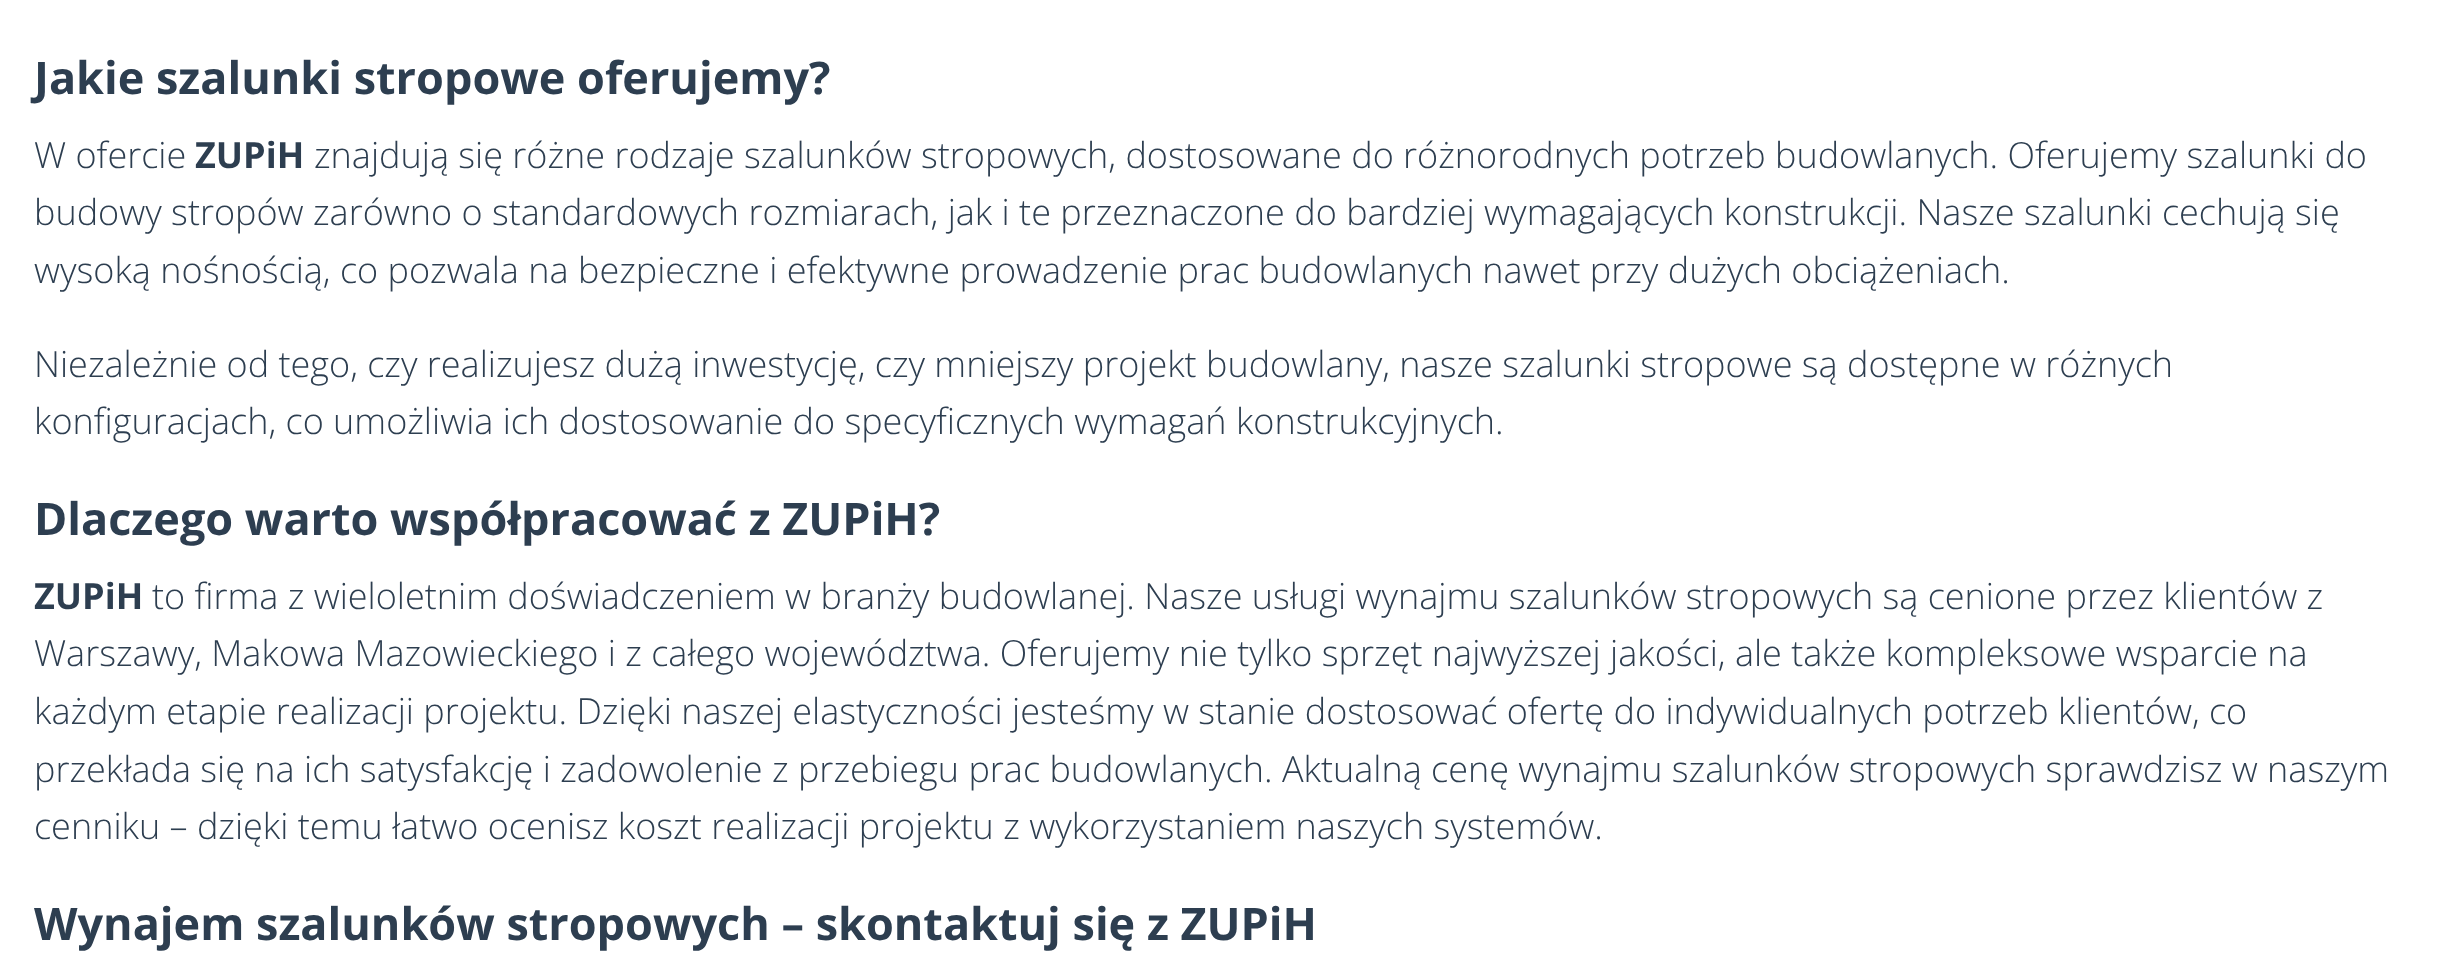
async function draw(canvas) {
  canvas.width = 2443;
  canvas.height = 977;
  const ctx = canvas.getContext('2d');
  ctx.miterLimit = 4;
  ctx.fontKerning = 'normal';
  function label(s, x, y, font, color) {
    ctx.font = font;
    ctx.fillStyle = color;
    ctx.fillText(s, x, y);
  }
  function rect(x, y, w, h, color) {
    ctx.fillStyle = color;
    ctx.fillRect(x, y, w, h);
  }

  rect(0, 0, 2443, 977, '#fff');
  label('Jakie szalunki stropowe oferujemy?', 34, 94, 'bold 45px Open Sans', '#2d3e50');
  label('W ofercie', 34, 168, '300 36px Open Sans', '#2d3e50');
  label('ZUPiH', 195, 168, 'bold 36px Open Sans', '#2d3e50');
  label('znajdują się różne rodzaje szalunków stropowych, dostosowane do różnorodnych potrzeb budowlanych. Oferujemy szalunki do', 314, 168, '300 36px Open Sans', '#2d3e50');
  label('budowy stropów zarówno o standardowych rozmiarach, jak i te przeznaczone do bardziej wymagających konstrukcji. Nasze szalunki cechują się', 34, 225, '300 36px Open Sans', '#2d3e50');
  label('wysoką nośnością, co pozwala na bezpieczne i efektywne prowadzenie prac budowlanych nawet przy dużych obciążeniach.', 34, 283, '300 36px Open Sans', '#2d3e50');
  label('Niezależnie od tego, czy realizujesz dużą inwestycję, czy mniejszy projekt budowlany, nasze szalunki stropowe są dostępne w różnych', 34, 377, '300 36px Open Sans', '#2d3e50');
  label('konfiguracjach, co umożliwia ich dostosowanie do specyficznych wymagań konstrukcyjnych.', 34, 434, '300 36px Open Sans', '#2d3e50');
  label('Dlaczego warto współpracować z ZUPiH?', 34, 535, 'bold 45px Open Sans', '#2d3e50');
  label('ZUPiH', 34, 609, 'bold 36px Open Sans', '#2d3e50');
  label('to firma z wieloletnim doświadczeniem w branży budowlanej. Nasze usługi wynajmu szalunków stropowych są cenione przez klientów z', 152, 609, '300 36px Open Sans', '#2d3e50');
  label('Warszawy, Makowa Mazowieckiego i z całego województwa. Oferujemy nie tylko sprzęt najwyższej jakości, ale także kompleksowe wsparcie na', 34, 666, '300 36px Open Sans', '#2d3e50');
  label('każdym etapie realizacji projektu. Dzięki naszej elastyczności jesteśmy w stanie dostosować ofertę do indywidualnych potrzeb klientów, co', 34, 724, '300 36px Open Sans', '#2d3e50');
  label('przekłada się na ich satysfakcję i zadowolenie z przebiegu prac budowlanych. Aktualną cenę wynajmu szalunków stropowych sprawdzisz w naszym', 34, 782, '300 36px Open Sans', '#2d3e50');
  label('cenniku – dzięki temu łatwo ocenisz koszt realizacji projektu z wykorzystaniem naszych systemów.', 34, 839, '300 36px Open Sans', '#2d3e50');
  label('Wynajem szalunków stropowych – skontaktuj się z ZUPiH', 34, 940, 'bold 45px Open Sans', '#2d3e50');
}

draw(document.querySelector('canvas'));
